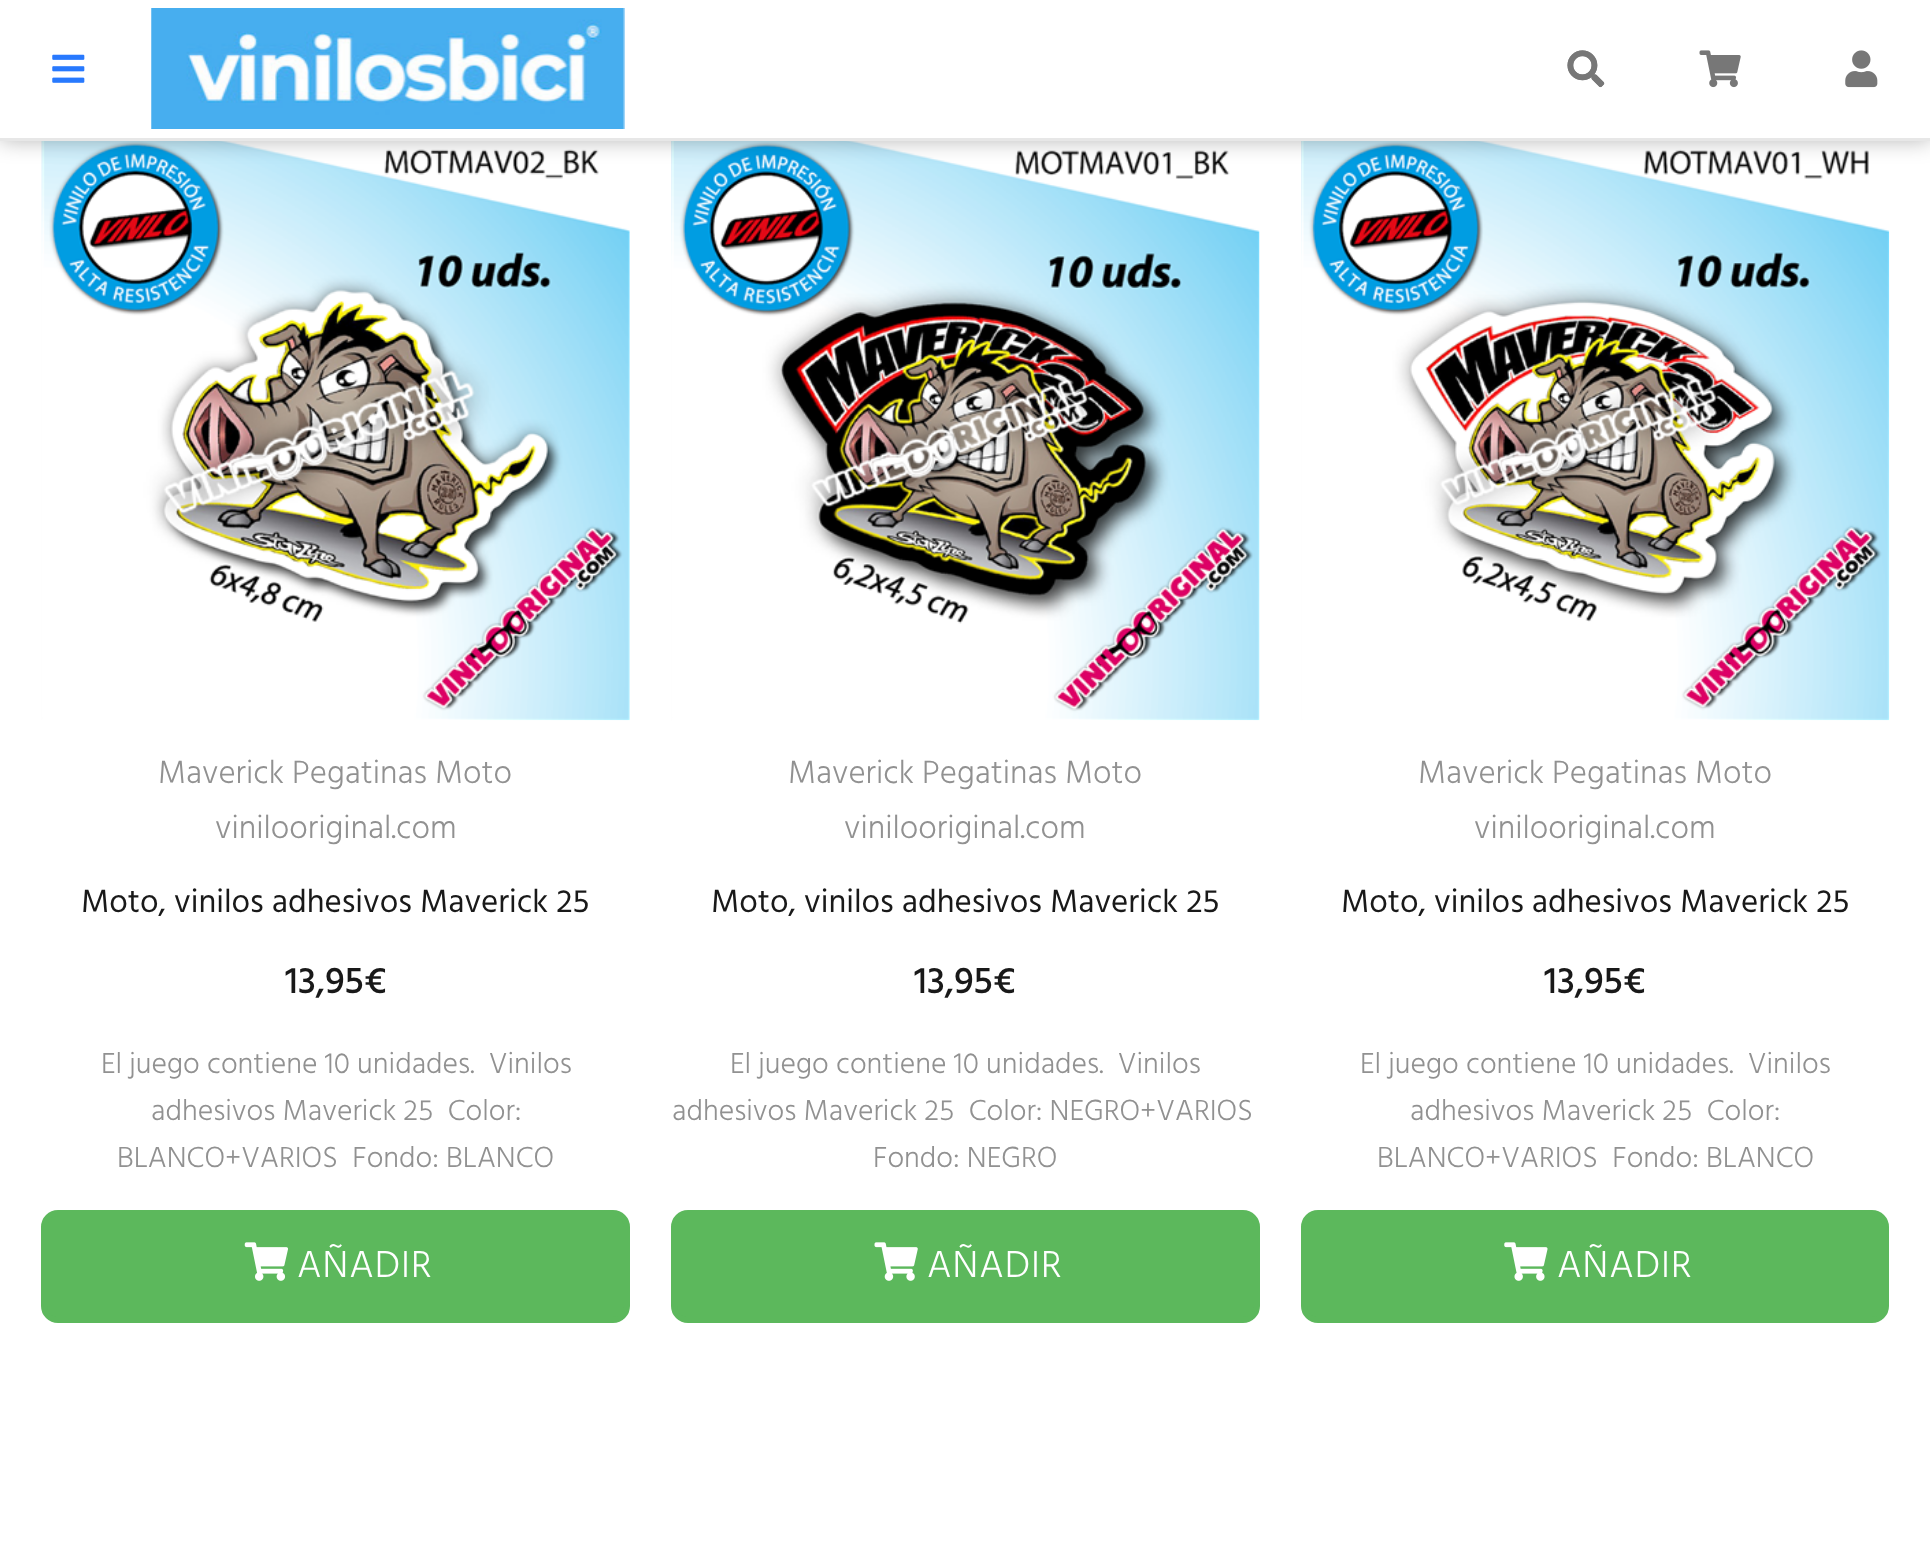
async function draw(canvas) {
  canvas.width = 1930;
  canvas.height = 1544;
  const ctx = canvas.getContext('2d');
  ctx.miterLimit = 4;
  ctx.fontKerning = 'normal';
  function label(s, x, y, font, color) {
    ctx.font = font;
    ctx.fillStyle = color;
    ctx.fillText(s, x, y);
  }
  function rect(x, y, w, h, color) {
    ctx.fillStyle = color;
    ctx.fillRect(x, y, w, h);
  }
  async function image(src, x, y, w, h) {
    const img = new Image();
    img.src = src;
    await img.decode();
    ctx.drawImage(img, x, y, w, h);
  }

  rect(0, 0, 1930, 1544, '#fff');
  await image('assets/img7.png', 41, 141, 589, 580);
  await image('assets/img9.png', 671, 141, 589, 580);
  await image('assets/img11.png', 1301, 141, 589, 580);
  ctx.fillStyle = '#0000004d';
  ctx.filter = 'blur(11px)';
  ctx.beginPath();
  ctx.rect(0, 0, 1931, 140);
  ctx.fill();
  ctx.filter = 'none';
  rect(0, 0, 1930, 138, '#fff');
  rect(0, 138, 1930, 3, '#e7e7e7');
  await image('assets/img1.png', 151, 8, 474, 121);
  await image('assets/img2.png', 1567, 50, 38, 38);
  await image('assets/img3.png', 52, 54, 33, 29);
  await image('assets/img4.png', 1567, 50, 38, 38);
  await image('assets/img5.png', 1699, 50, 42, 38);
  await image('assets/img6.png', 1845, 50, 33, 38);
  label('Maverick Pegatinas Moto', 158, 783, '300 33px Hind', '#919191');
  label('vinilooriginal.com', 215, 838, '300 33px Hind', '#919191');
  label('Moto, vinilos adhesivos Maverick 25', 81, 912, '33px Hind', '#191919');
  label('13,95€', 285, 993, '500 38px Hind', '#191919');
  label('El juego contiene 10 unidades.  Vinilos', 101, 1073, '300 29.75px Hind', '#919191');
  label('adhesivos Maverick 25  Color:', 151, 1120, '300 29.75px Hind', '#919191');
  label('BLANCO+VARIOS  Fondo: BLANCO', 117, 1167, '300 29.75px Hind', '#919191');
  ctx.fillStyle = '#5cb85c';
  ctx.beginPath();
  ctx.roundRect(44, 1213, 583, 107, 14);
  ctx.fill();
  ctx.strokeStyle = '#5cb85c';
  ctx.lineWidth = 6;
  ctx.stroke();
  await image('assets/img8.png', 244, 1242, 44, 39);
  ctx.letterSpacing = '1px';
  label('AÑADIR', 297, 1277, '300 38.5px Hind', '#fff');
  ctx.letterSpacing = '0px';
  label('Maverick Pegatinas Moto', 788, 783, '300 33px Hind', '#919191');
  label('vinilooriginal.com', 844, 838, '300 33px Hind', '#919191');
  label('Moto, vinilos adhesivos Maverick 25', 711, 912, '33px Hind', '#191919');
  label('13,95€', 914, 993, '500 38px Hind', '#191919');
  label('El juego contiene 10 unidades.  Vinilos', 730, 1073, '300 29.75px Hind', '#919191');
  label('adhesivos Maverick 25  Color: NEGRO+VARIOS', 672, 1120, '300 29.75px Hind', '#919191');
  label('Fondo: NEGRO', 873, 1167, '300 29.75px Hind', '#919191');
  ctx.fillStyle = '#5cb85c';
  ctx.beginPath();
  ctx.roundRect(674, 1213, 583, 107, 14);
  ctx.fill();
  ctx.stroke();
  await image('assets/img10.png', 874, 1242, 44, 39);
  ctx.letterSpacing = '1px';
  label('AÑADIR', 927, 1277, '300 38.5px Hind', '#fff');
  ctx.letterSpacing = '0px';
  label('Maverick Pegatinas Moto', 1418, 783, '300 33px Hind', '#919191');
  label('vinilooriginal.com', 1474, 838, '300 33px Hind', '#919191');
  label('Moto, vinilos adhesivos Maverick 25', 1341, 912, '33px Hind', '#191919');
  label('13,95€', 1544, 993, '500 38px Hind', '#191919');
  label('El juego contiene 10 unidades.  Vinilos', 1360, 1073, '300 29.75px Hind', '#919191');
  label('adhesivos Maverick 25  Color:', 1410, 1120, '300 29.75px Hind', '#919191');
  label('BLANCO+VARIOS  Fondo: BLANCO', 1377, 1167, '300 29.75px Hind', '#919191');
  ctx.fillStyle = '#5cb85c';
  ctx.beginPath();
  ctx.roundRect(1304, 1213, 582, 107, 14);
  ctx.fill();
  ctx.stroke();
  await image('assets/img12.png', 1504, 1242, 44, 39);
  ctx.letterSpacing = '1px';
  label('AÑADIR', 1557, 1277, '300 38.5px Hind', '#fff');
}

draw(document.querySelector('canvas'));
